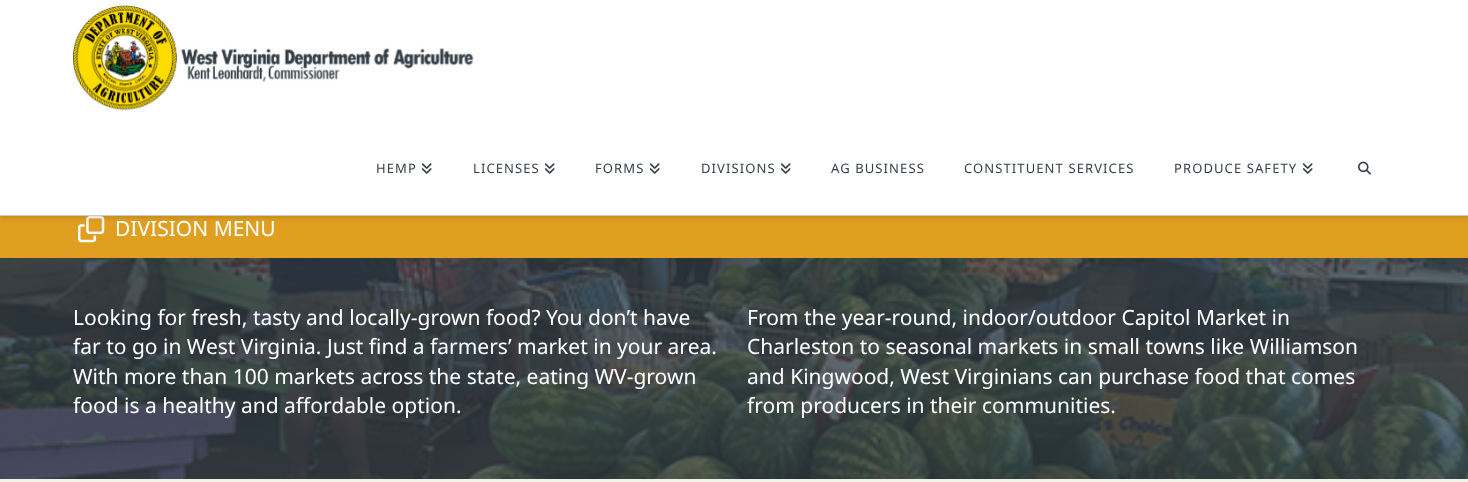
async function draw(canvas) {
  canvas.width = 1468;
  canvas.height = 482;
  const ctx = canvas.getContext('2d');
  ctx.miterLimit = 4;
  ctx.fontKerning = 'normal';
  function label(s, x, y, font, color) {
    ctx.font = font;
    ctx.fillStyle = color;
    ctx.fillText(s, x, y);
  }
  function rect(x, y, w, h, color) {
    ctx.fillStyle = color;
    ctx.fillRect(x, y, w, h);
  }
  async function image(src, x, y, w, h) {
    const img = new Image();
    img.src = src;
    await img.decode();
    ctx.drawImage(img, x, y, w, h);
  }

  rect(0, 0, 1468, 482, '#f1f1e6');
  rect(0, 216, 1468, 42, '#e09f20');
  await image('assets/img4.png', 78, 216, 27, 27);
  ctx.fillStyle = '#00000021';
  ctx.filter = 'blur(2.5px)';
  ctx.beginPath();
  ctx.rect(0, 2, 1468, 216);
  ctx.fill();
  ctx.filter = 'none';
  rect(0, 0, 1468, 215, '#fff');
  rect(0, 215, 1468, 1, '#ccc');
  await image('assets/img1.png', 73, 5, 401, 106);
  ctx.letterSpacing = '1.1px';
  label('HEMP', 376, 173, '13px Noto Sans', '#343f47');
  await image('assets/img2.png', 421, 163, 11, 11);
  label('LICENSES', 473, 173, '13px Noto Sans', '#343f47');
  await image('assets/img2.png', 544, 163, 11, 11);
  label('FORMS', 595, 173, '13px Noto Sans', '#343f47');
  await image('assets/img2.png', 649, 163, 11, 11);
  label('DIVISIONS', 701, 173, '13px Noto Sans', '#343f47');
  await image('assets/img2.png', 780, 163, 11, 11);
  label('AG BUSINESS', 831, 173, '13px Noto Sans', '#343f47');
  label('CONSTITUENT SERVICES', 964, 173, '13px Noto Sans', '#343f47');
  label('PRODUCE SAFETY', 1174, 173, '13px Noto Sans', '#343f47');
  await image('assets/img2.png', 1302, 163, 11, 11);
  await image('assets/img3.png', 1358, 161, 13, 14);
  ctx.letterSpacing = '0px';
  label('DIVISION MENU', 115, 236, '21px Noto Sans', '#fff');
  await image('assets/img5.png', 0, 258, 1468, 221);
  label('Looking for fresh, tasty and locally-grown food? You don’t have', 73, 325, '21px Noto Sans', '#fff');
  label('far to go in West Virginia. Just find a farmers’ market in your area.', 73, 354, '21px Noto Sans', '#fff');
  label('With more than 100 markets across the state, eating WV-grown', 73, 384, '21px Noto Sans', '#fff');
  label('food is a healthy and affordable option.', 73, 413, '21px Noto Sans', '#fff');
  label('From the year-round, indoor/outdoor Capitol Market in', 747, 325, '21px Noto Sans', '#fff');
  label('Charleston to seasonal markets in small towns like Williamson', 747, 354, '21px Noto Sans', '#fff');
  label('and Kingwood, West Virginians can purchase food that comes', 747, 384, '21px Noto Sans', '#fff');
  label('from producers in their communities.', 747, 413, '21px Noto Sans', '#fff');
}

draw(document.querySelector('canvas'));
